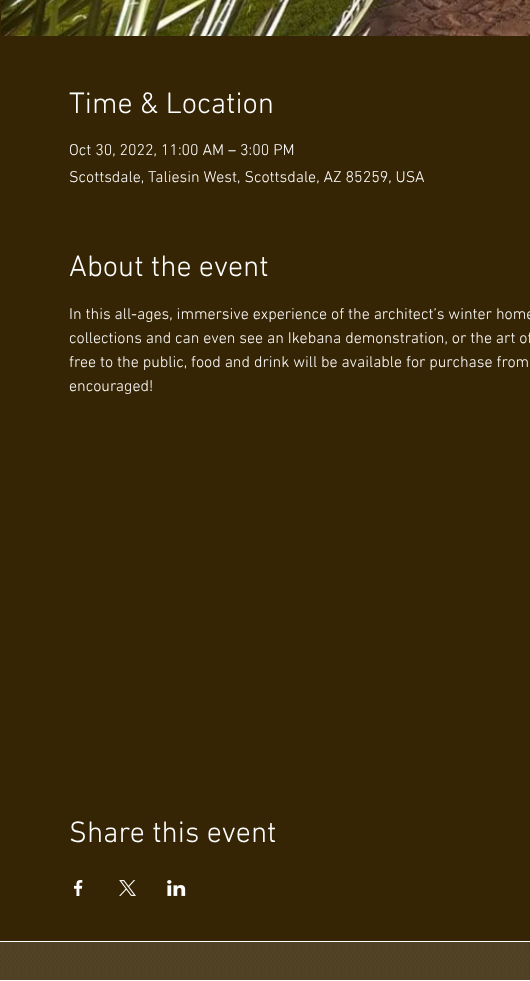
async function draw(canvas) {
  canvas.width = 530;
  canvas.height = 981;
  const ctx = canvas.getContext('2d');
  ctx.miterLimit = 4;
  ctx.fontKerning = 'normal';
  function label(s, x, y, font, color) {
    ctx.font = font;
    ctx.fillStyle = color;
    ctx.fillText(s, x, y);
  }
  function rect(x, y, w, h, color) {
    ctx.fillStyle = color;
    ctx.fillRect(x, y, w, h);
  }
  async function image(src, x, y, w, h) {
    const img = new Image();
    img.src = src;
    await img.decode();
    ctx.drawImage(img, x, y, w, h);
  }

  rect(0, 0, 530, 981, '#9b9282');
  rect(0, 0, 530, 941, '#362505');
  await image('assets/img1.png', 1, 0, 529, 36);
  label('Time & Location', 69, 113, '300 30px "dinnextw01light"', '#fff');
  label('Oct 30, 2022, 11:00 AM – 3:00 PM', 69, 155, '300 16px "dinnextw01light"', '#fff');
  label('Scottsdale, Taliesin West, Scottsdale, AZ 85259, USA', 69, 182, '300 16px "dinnextw01light"', '#fff');
  label('About the event', 69, 276, '300 30px "dinnextw01light"', '#fff');
  label('In this all-ages, immersive experience of the architect’s winter home', 69, 319, '300 16px "dinnextw01light"', '#fff');
  label('collections and can even see an Ikebana demonstration, or the art of', 69, 343, '300 16px "dinnextw01light"', '#fff');
  label('free to the public, food and drink will be available for purchase from', 69, 367, '300 16px "dinnextw01light"', '#fff');
  label('encouraged!', 69, 391, '300 16px "dinnextw01light"', '#fff');
  label('Share this event', 69, 842, '300 30px "dinnextw01light"', '#fff');
  await image('assets/img2.png', 74, 880, 9, 16);
  await image('assets/img3.png', 119, 880, 17, 16);
  await image('assets/img4.png', 167, 880, 19, 16);
  await image('assets/img5.png', 0, 942, 530, 38);
  rect(0, 942, 530, 38, '#36250582');
  rect(0, 941, 530, 1, '#fff');
  rect(0, 980, 530, 1, '#fff');
  rect(0, 942, 530, 38, '#36250580');
}

draw(document.querySelector('canvas'));
